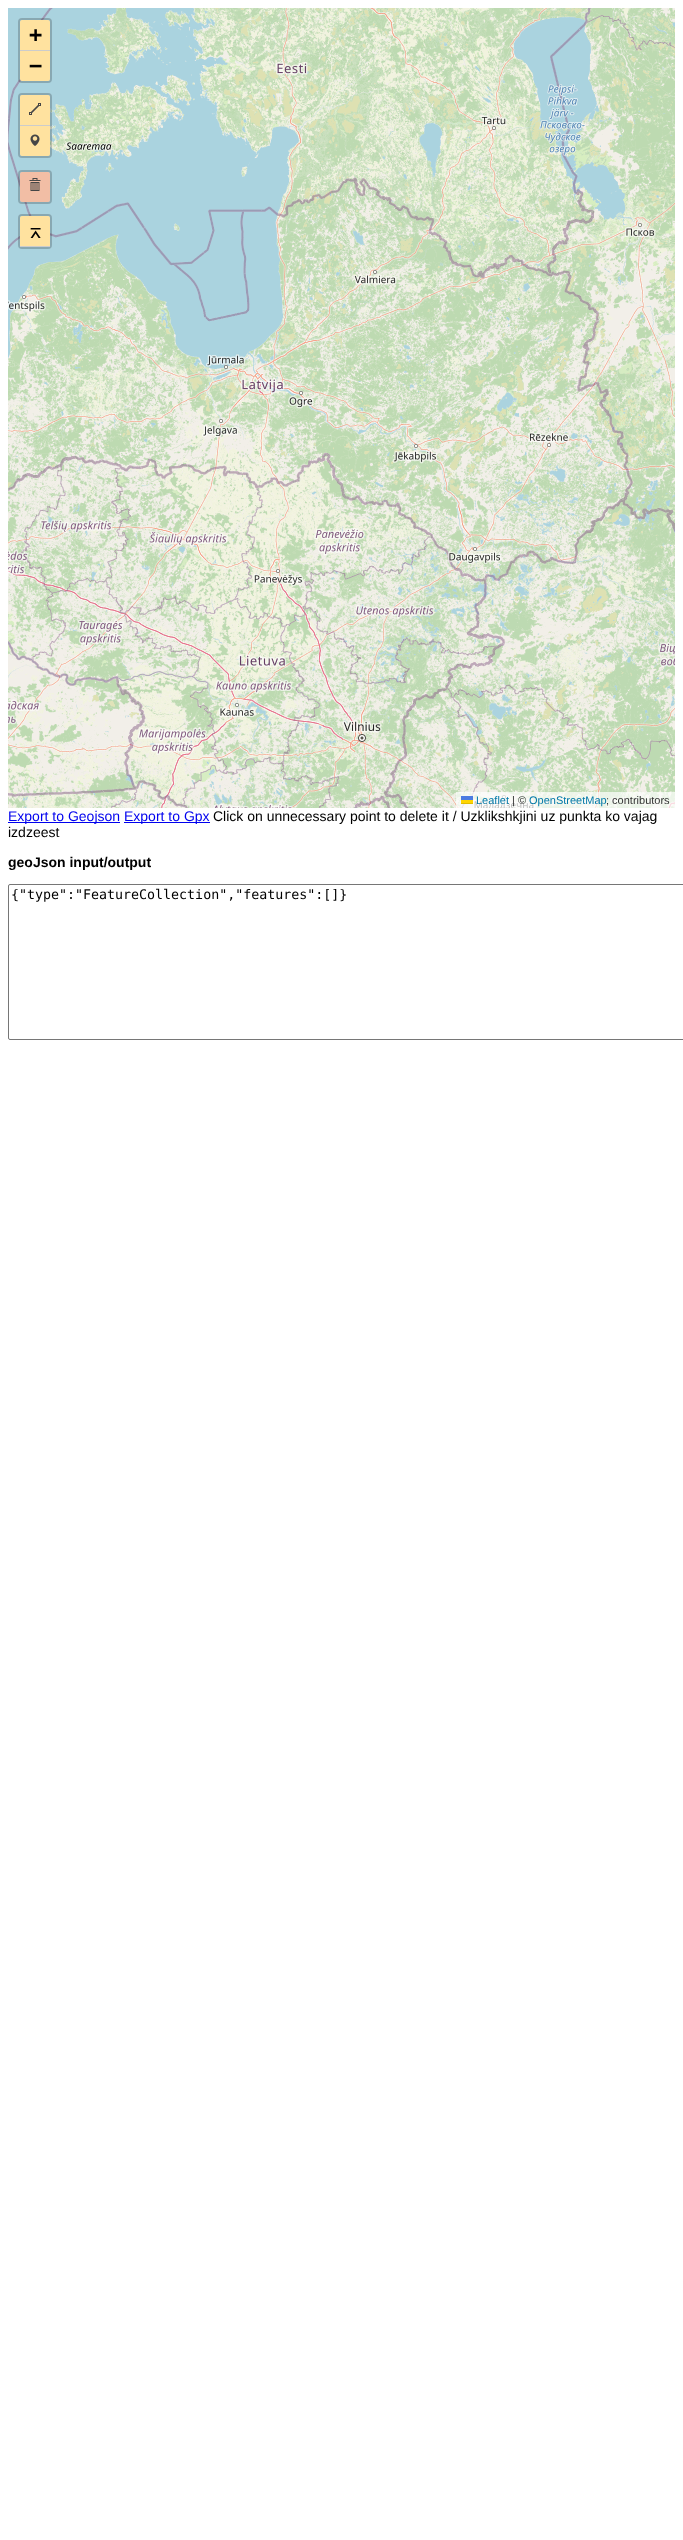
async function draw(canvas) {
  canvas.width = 683;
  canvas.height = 2540;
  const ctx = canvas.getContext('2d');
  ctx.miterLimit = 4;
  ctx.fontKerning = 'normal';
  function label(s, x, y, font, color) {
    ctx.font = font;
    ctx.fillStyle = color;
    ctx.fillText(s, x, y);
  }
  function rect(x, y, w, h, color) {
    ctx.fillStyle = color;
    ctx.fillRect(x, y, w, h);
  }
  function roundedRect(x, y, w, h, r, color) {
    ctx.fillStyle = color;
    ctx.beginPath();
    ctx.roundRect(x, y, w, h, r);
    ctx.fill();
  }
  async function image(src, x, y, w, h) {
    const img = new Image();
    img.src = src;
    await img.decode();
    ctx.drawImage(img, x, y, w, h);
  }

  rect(0, 0, 683, 2540, '#fff');
  await image('assets/img1.png', 8, 8, 101, 44);
  await image('assets/img2.png', 109, 8, 256, 44);
  await image('assets/img3.png', 365, 8, 256, 44);
  await image('assets/img4.png', 621, 8, 54, 44);
  await image('assets/img5.png', 8, 52, 101, 256);
  await image('assets/img6.png', 109, 52, 256, 256);
  await image('assets/img7.png', 365, 52, 256, 256);
  await image('assets/img8.png', 621, 52, 54, 256);
  await image('assets/img9.png', 8, 308, 101, 256);
  await image('assets/img10.png', 109, 308, 256, 256);
  await image('assets/img11.png', 365, 308, 256, 256);
  await image('assets/img12.png', 621, 308, 54, 256);
  await image('assets/img13.png', 8, 564, 101, 244);
  await image('assets/img14.png', 109, 564, 256, 244);
  await image('assets/img15.png', 365, 564, 256, 244);
  await image('assets/img16.png', 621, 564, 54, 244);
  ctx.beginPath();
  ctx.roundRect(19, 19, 32, 63, 3);
  ctx.strokeStyle = '#00000033';
  ctx.lineWidth = 2;
  ctx.stroke();
  ctx.fillStyle = '#ffe29f';
  ctx.beginPath();
  ctx.roundRect(20, 20, 30, 31, [2, 2, 0, 0]);
  ctx.fill();
  rect(20, 50, 30, 1, '#ccc');
  label('+', 29, 42, 'bold 22px DejaVu Sans Mono', '#000');
  ctx.fillStyle = '#ffe29f';
  ctx.beginPath();
  ctx.roundRect(20, 51, 30, 30, [0, 0, 2, 2]);
  ctx.fill();
  label('−', 29, 73, 'bold 22px DejaVu Sans Mono', '#000');
  ctx.beginPath();
  ctx.roundRect(19, 94, 32, 63, 3);
  ctx.stroke();
  ctx.fillStyle = '#ffe29f';
  ctx.beginPath();
  ctx.roundRect(20, 95, 30, 30, [2, 2, 0, 0]);
  ctx.fill();
  await image('assets/img17.png', 29, 103, 12, 12);
  rect(20, 125, 30, 1, '#ccc');
  ctx.fillStyle = '#ffe29f';
  ctx.beginPath();
  ctx.roundRect(20, 126, 30, 30, [0, 0, 2, 2]);
  ctx.fill();
  await image('assets/img18.png', 30, 134, 10, 12);
  ctx.beginPath();
  ctx.roundRect(19, 171, 32, 32, 3);
  ctx.stroke();
  roundedRect(20, 172, 30, 30, 2, '#f2bea5');
  await image('assets/img19.png', 29, 178, 12, 13);
  ctx.beginPath();
  ctx.roundRect(19, 215, 32, 33, 3);
  ctx.stroke();
  ctx.fillStyle = '#ffe29f';
  ctx.beginPath();
  ctx.roundRect(20, 216, 30, 31, [2, 2, 0, 0]);
  ctx.fill();
  rect(20, 246, 30, 1, '#ccc');
  label('⌅', 29, 238, 'bold 22px DejaVu Sans Mono', '#000');
  rect(456, 792, 219, 16, '#ffffffb3');
  label('Leaflet', 476, 804, '11px Liberation Sans', '#0078a8');
  rect(461, 796, 12, 4, '#4c7be1');
  rect(461, 800, 12, 3, '#ffd500');
  rect(461, 803, 12, 1, '#e0bc00');
  label('| ©', 512, 804, '11px Liberation Sans', '#333');
  label('OpenStreetMap', 529, 804, '11px Liberation Sans', '#0078a8');
  label('; contributors', 606, 804, '11px Liberation Sans', '#333');
  rect(8, 822, 112, 1, '#00e');
  label('Export to Geojson', 8, 821, '14px Liberation Sans', '#00e');
  rect(124, 822, 86, 1, '#00e');
  label('Export to Gpx', 124, 821, '14px Liberation Sans', '#00e');
  label('Click on unnecessary point to delete it / Uzklikshkjini uz punkta ko vajag', 213, 821, '14px Liberation Sans', '#000');
  label('izdzeest', 8, 837, '14px Liberation Sans', '#000');
  label('geoJson input/output', 8, 867, 'bold 14px Liberation Sans', '#000');
  ctx.beginPath();
  ctx.roundRect(8.5, 884.5, 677, 155, 1.5);
  ctx.strokeStyle = '#767676';
  ctx.lineWidth = 1;
  ctx.stroke();
  label('{"type":"FeatureCollection","features":[]}', 11, 899, '13.3px DejaVu Sans Mono', '#000');
}

draw(document.querySelector('canvas'));
